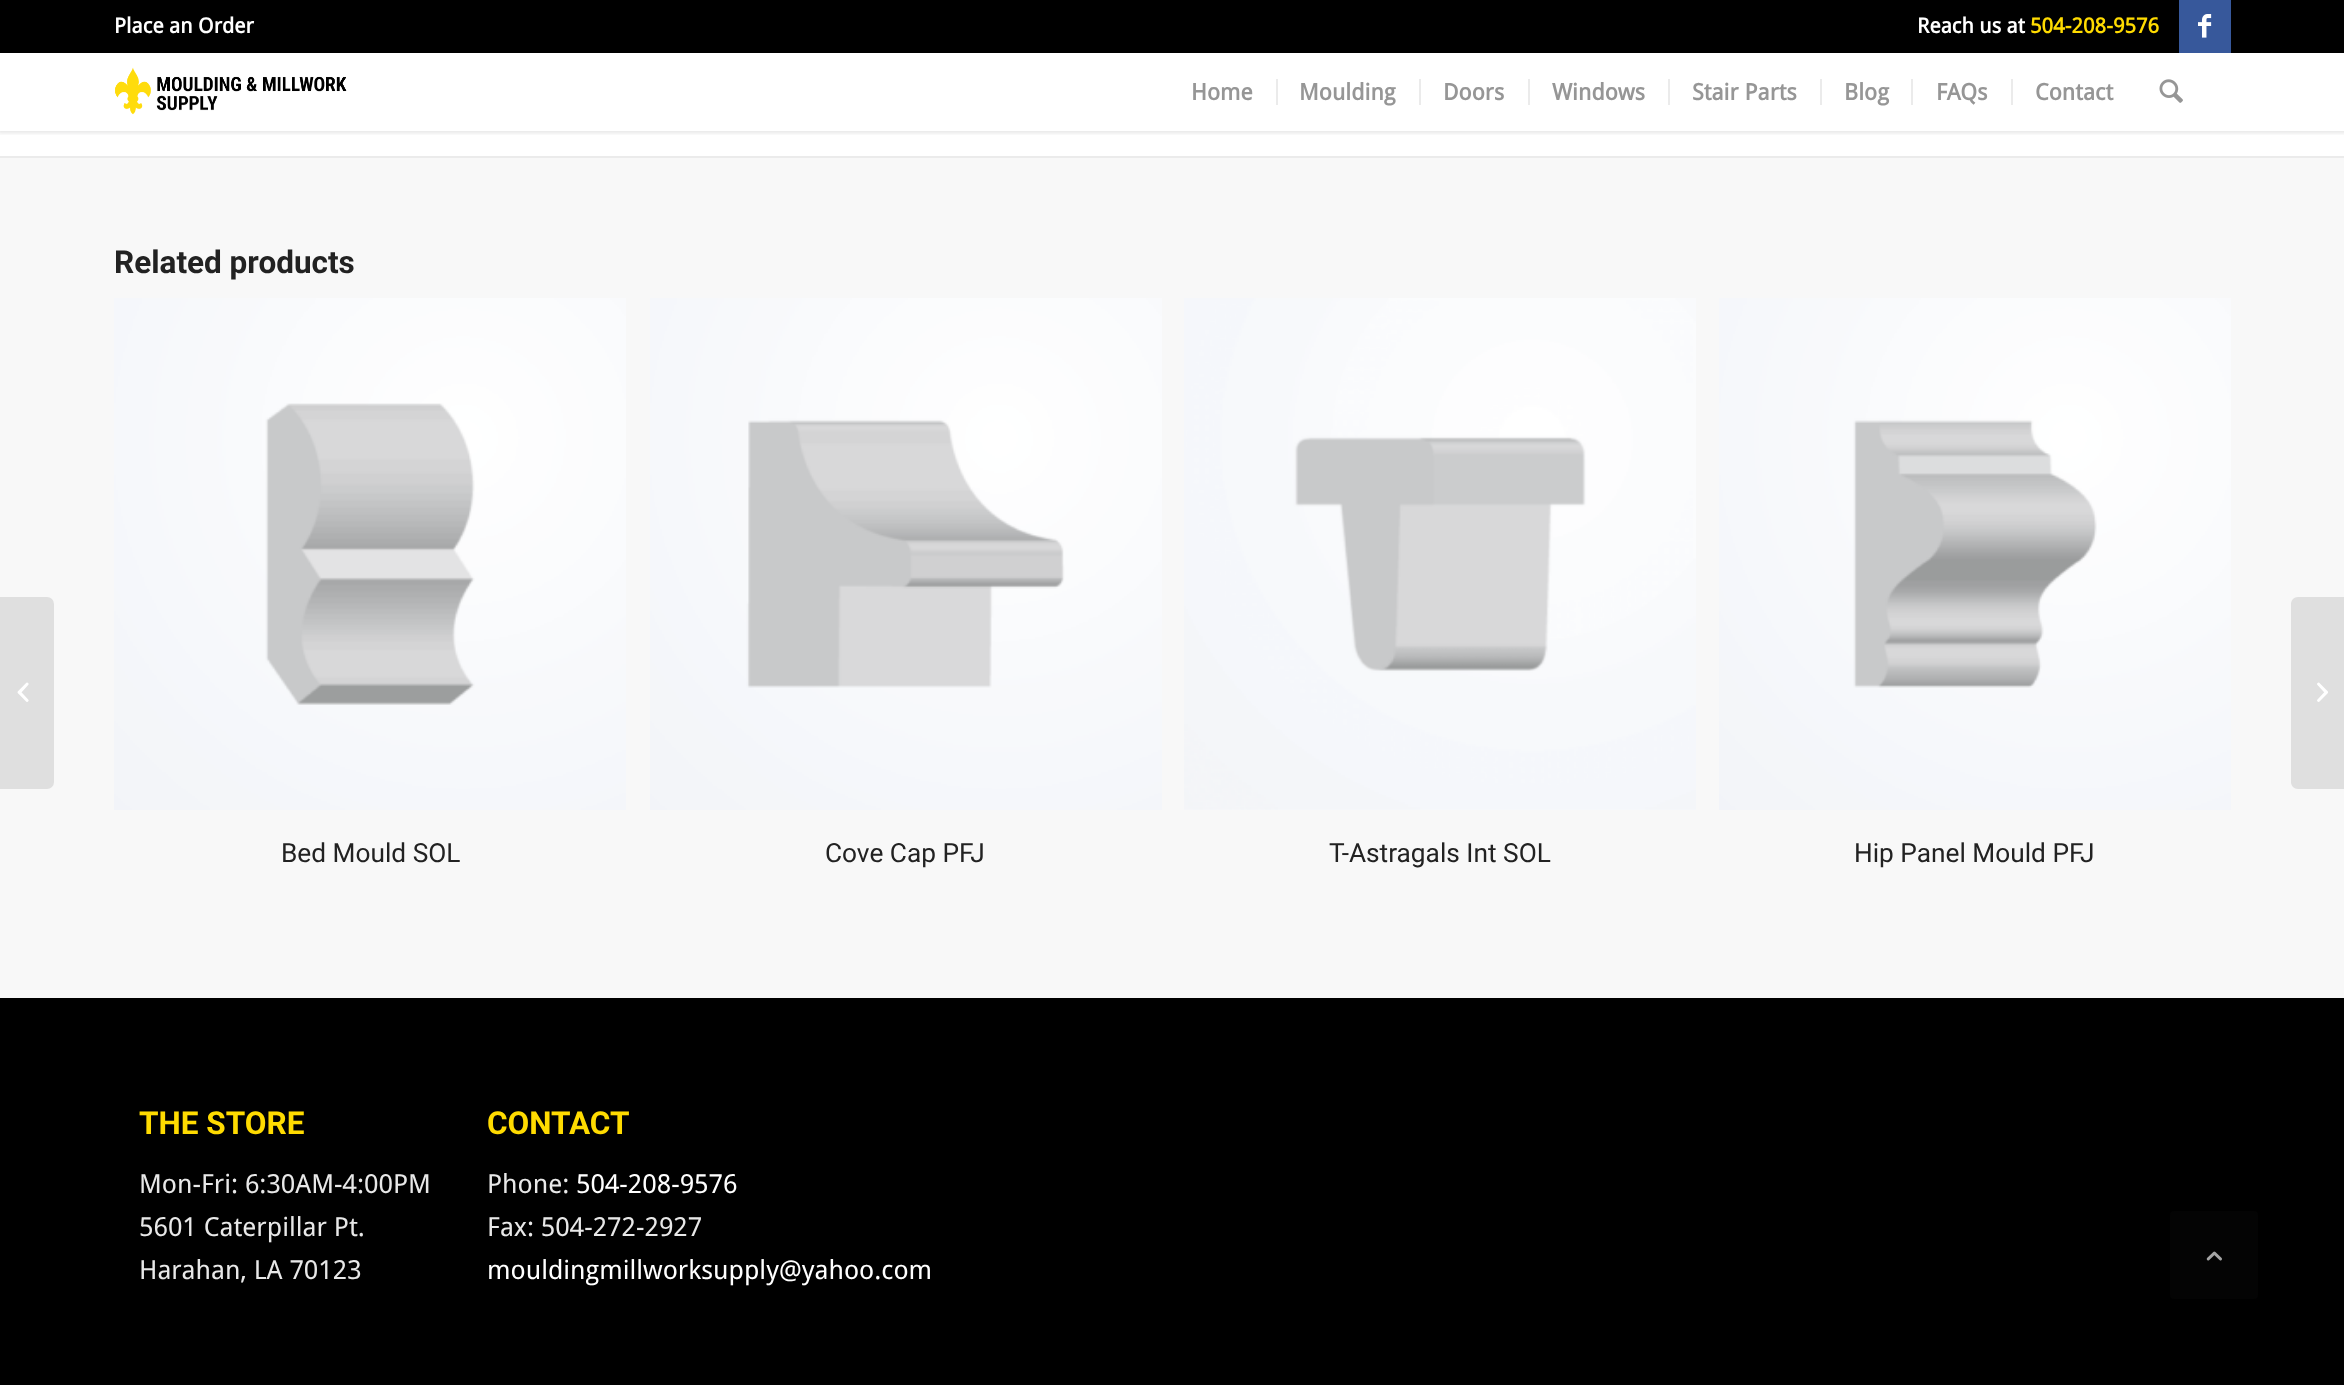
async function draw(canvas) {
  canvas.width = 2344;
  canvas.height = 1385;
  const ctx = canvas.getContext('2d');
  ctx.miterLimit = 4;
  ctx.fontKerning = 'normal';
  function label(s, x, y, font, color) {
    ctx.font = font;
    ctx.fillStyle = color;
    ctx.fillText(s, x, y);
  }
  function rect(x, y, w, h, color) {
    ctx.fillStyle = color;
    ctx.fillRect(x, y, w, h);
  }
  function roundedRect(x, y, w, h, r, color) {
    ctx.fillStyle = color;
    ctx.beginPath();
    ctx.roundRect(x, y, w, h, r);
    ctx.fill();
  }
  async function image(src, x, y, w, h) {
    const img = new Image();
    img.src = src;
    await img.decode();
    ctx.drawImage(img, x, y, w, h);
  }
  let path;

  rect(0, 0, 2344, 1385, '#fff');
  ctx.save();
  ctx.beginPath();
  ctx.rect(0, 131, 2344, 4);
  ctx.clip();
  ctx.fillStyle = '#0000001a';
  ctx.filter = 'blur(2px)';
  ctx.beginPath();
  ctx.rect(-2, -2, 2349, 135);
  ctx.fill();
  ctx.filter = 'none';
  ctx.restore();
  rect(0, 0, 2344, 53, '#000');
  label('Place an Order', 114, 33, 'bold 21px Droid Sans', '#fff');
  label('Reach us at', 1917, 33, 'bold 21px Droid Sans', '#fff');
  label('504-208-9576', 2030, 33, 'bold 21px Droid Sans', '#ffdb00');
  rect(2179, 0, 52, 53, '#37589b');
  await image('assets/img1.png', 2198, 14, 14, 24);
  await image('assets/img2.png', 115, 67, 232, 48);
  label('Home', 1191, 100, 'bold 22.75px Droid Sans', '#969696');
  label('Moulding', 1299, 100, 'bold 22.75px Droid Sans', '#969696');
  rect(1276, 79, 2, 26, '#ebebeb');
  label('Doors', 1443, 100, 'bold 22.75px Droid Sans', '#969696');
  rect(1419, 79, 2, 26, '#ebebeb');
  label('Windows', 1552, 100, 'bold 22.75px Droid Sans', '#969696');
  rect(1528, 79, 2, 26, '#ebebeb');
  label('Stair Parts', 1692, 100, 'bold 22.75px Droid Sans', '#969696');
  rect(1668, 79, 2, 26, '#ebebeb');
  label('Blog', 1844, 100, 'bold 22.75px Droid Sans', '#969696');
  rect(1820, 79, 2, 26, '#ebebeb');
  label('FAQs', 1936, 100, 'bold 22.75px Droid Sans', '#969696');
  rect(1911, 79, 2, 26, '#ebebeb');
  label('Contact', 2035, 100, 'bold 22.75px Droid Sans', '#969696');
  rect(2011, 79, 2, 26, '#ebebeb');
  await image('assets/img3.png', 2159, 79, 24, 24);
  rect(0, 158, 2344, 840, '#f8f8f8');
  ctx.fillStyle = '#dfdfdf';
  ctx.beginPath();
  ctx.roundRect(0, 597, 54, 192, [0, 7, 7, 0]);
  ctx.fill();
  await image('assets/img4.png', 17, 682, 12, 20);
  rect(0, 156, 2344, 2, '#ebebeb');
  label('Related products', 114, 273, 'bold 31.5px Roboto', '#222');
  await image('assets/img5.png', 114, 298, 512, 512);
  label('Bed Mould SOL', 281, 862, '26.25px Roboto', '#222');
  await image('assets/img6.png', 650, 298, 512, 512);
  label('Cove Cap PFJ', 825, 862, '26.25px Roboto', '#222');
  await image('assets/img7.png', 1184, 298, 512, 512);
  label('T-Astragals Int SOL', 1329, 862, '26.25px Roboto', '#222');
  await image('assets/img8.png', 1719, 298, 512, 512);
  label('Hip Panel Mould PFJ', 1854, 862, '26.25px Roboto', '#222');
  rect(0, 998, 2344, 387, '#000');
  label('THE STORE', 139, 1134, 'bold 31.5px Roboto', '#ffdb00');
  label('Mon-Fri: 6:30AM-4:00PM', 139, 1193, '26.25px Droid Sans', '#e8e8e8');
  label('5601 Caterpillar Pt.', 139, 1236, '26.25px Droid Sans', '#e8e8e8');
  label('Harahan, LA 70123', 139, 1279, '26.25px Droid Sans', '#e8e8e8');
  label('CONTACT', 487, 1134, 'bold 31.5px Roboto', '#ffdb00');
  label('Phone:', 487, 1193, '26.25px Droid Sans', '#e8e8e8');
  label('504-208-9576', 576, 1193, '26.25px Droid Sans', '#fff');
  label('Fax: 504-272-2927', 487, 1236, '26.25px Droid Sans', '#e8e8e8');
  label('mouldingmillworksupply@yahoo.com', 487, 1279, '26.25px Droid Sans', '#fff');
  ctx.fillStyle = '#dfdfdf';
  path = new Path2D('M2298 597H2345V789H2298C2294 789 2291 786 2291 782V604C2291 600 2294 597 2298 597Z');
  ctx.fill(path);
  await image('assets/img9.png', 2317, 682, 11, 20);
  roundedRect(2170, 1211, 88, 88, 4, '#040404');
  await image('assets/img10.png', 2206, 1251, 16, 10);
}

draw(document.querySelector('canvas'));
